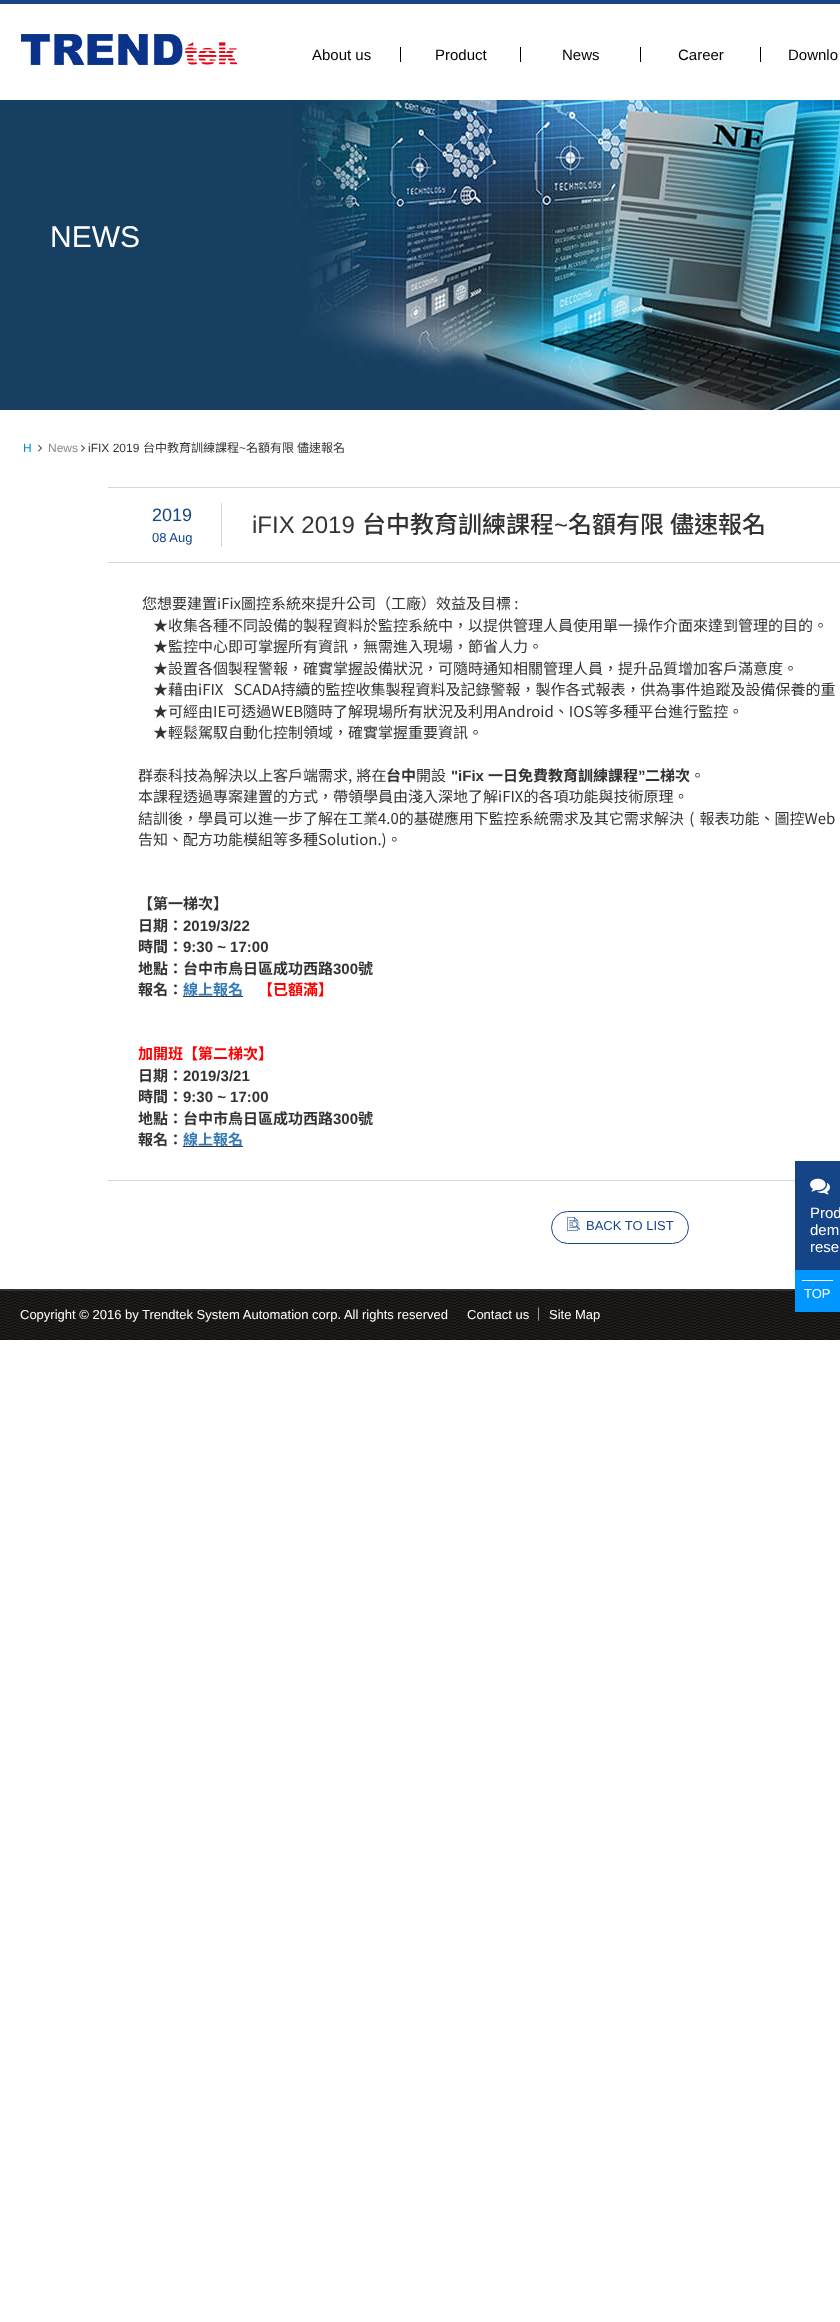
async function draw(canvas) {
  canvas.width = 840;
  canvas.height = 2322;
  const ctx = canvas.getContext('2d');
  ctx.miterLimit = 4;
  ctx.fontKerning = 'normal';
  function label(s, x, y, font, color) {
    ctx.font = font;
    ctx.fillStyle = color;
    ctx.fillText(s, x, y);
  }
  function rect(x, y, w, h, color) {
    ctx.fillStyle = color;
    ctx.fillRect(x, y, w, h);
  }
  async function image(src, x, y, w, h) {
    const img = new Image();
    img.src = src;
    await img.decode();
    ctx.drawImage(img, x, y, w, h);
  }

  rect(0, 0, 840, 2322, '#fff');
  rect(0, 0, 840, 4, '#154487');
  await image('assets/img1.png', 20, 34, 164, 32);
  await image('assets/img2.png', 184, 42, 56, 24);
  label('About us', 312, 60, '15px Liberation Sans', '#000');
  rect(400, 47, 1, 15, '#000');
  label('Product', 435, 60, '15px Liberation Sans', '#000');
  rect(520, 47, 1, 15, '#000');
  label('News', 562, 60, '15px Liberation Sans', '#000');
  rect(640, 47, 1, 15, '#000');
  label('Career', 678, 60, '15px Liberation Sans', '#000');
  rect(760, 47, 1, 15, '#000');
  label('Downlo', 788, 60, '15px Liberation Sans', '#000');
  await image('assets/img3.png', 0, 100, 840, 310);
  label('NEWS', 50, 247, '30px Liberation Sans', '#fff');
  label('H', 23, 452, '12px Liberation Sans', '#008dd2');
  await image('assets/img4.png', 38, 444, 4, 8);
  label('News', 48, 452, '12px Liberation Sans', '#888');
  await image('assets/img4.png', 81, 444, 4, 8);
  label('iFIX 2019', 88, 452, '12px Liberation Sans', '#333');
  label('台中教育訓練課程', 143, 452, '12px Noto Sans TC', '#333');
  label('~', 239, 452, '12px Liberation Sans', '#333');
  label('名額有限', 246, 452, '12px Noto Sans TC', '#333');
  label('儘速報名', 297, 452, '12px Noto Sans TC', '#333');
  rect(108, 487, 732, 1, '#d6d6d6');
  rect(108, 562, 732, 1, '#d6d6d6');
  rect(221, 503, 1, 44, '#d6d6d6');
  label('2019', 152, 521, '18px Liberation Sans', '#154487');
  label('08 Aug', 152, 542, '13px Liberation Sans', '#154487');
  label('iFIX 2019', 252, 533, '24px Liberation Sans', '#333');
  label('台中教育訓練課程', 362, 533, '500 24px Noto Sans TC', '#333');
  label('~', 554, 533, '24px Liberation Sans', '#333');
  label('名額有限', 568, 533, '500 24px Noto Sans TC', '#333');
  label('儘速報名', 670, 533, '500 24px Noto Sans TC', '#333');
  label('您想要建置iFix圖控系統來提升公司（工廠）效益及目標 :', 142, 609, '15px Noto Sans TC', '#333');
  label('★收集各種不同設備的製程資料於監控系統中，以提供管理人員使用單一操作介面來達到管理的目的。', 153, 631, '15px Noto Sans TC', '#333');
  label('★監控中心即可掌握所有資訊，無需進入現場，節省人力。', 153, 652, '15px Noto Sans TC', '#333');
  label('★設置各個製程警報，確實掌握設備狀況，可隨時通知相關管理人員，提升品質增加客戶滿意度。', 153, 674, '15px Noto Sans TC', '#333');
  ctx.wordSpacing = '7px';
  label('★藉由iFIX SCADA持續的監控收集製程資料及記錄警報，製作各式報表，供為事件追蹤及設備保養的重', 153, 695, '15px Noto Sans TC', '#333');
  ctx.wordSpacing = '0px';
  label('★可經由IE可透過WEB隨時了解現場所有狀況及利用Android、IOS等多種平台進行監控。', 153, 717, '15px Noto Sans TC', '#333');
  label('★輕鬆駕馭自動化控制領域，確實掌握重要資訊。', 153, 738, '15px Noto Sans TC', '#333');
  ctx.wordSpacing = '1px';
  label('群泰科技為解決以上客戶端需求, 將在', 138, 781, '15px Noto Sans TC', '#333');
  ctx.wordSpacing = '0px';
  label('台中', 386, 781, 'bold 15px Noto Sans TC', '#333');
  label('開設', 416, 781, '15px Noto Sans TC', '#333');
  label('"iFix', 451, 781, 'bold 15px Liberation Sans', '#333');
  label('一日免費教育訓練課程', 488, 781, 'bold 15px Noto Sans TC', '#333');
  label('”', 638, 781, 'bold 15px Liberation Sans', '#333');
  label('二梯次', 645, 781, 'bold 15px Noto Sans TC', '#333');
  label('。', 690, 781, '15px Noto Sans TC', '#333');
  label('本課程透過專案建置的方式，帶領學員由淺入深地了解iFIX的各項功能與技術原理。', 138, 802, '15px Noto Sans TC', '#333');
  ctx.wordSpacing = '2px';
  label('結訓後，學員可以進一步了解在工業4.0的基礎應用下監控系統需求及其它需求解決 ( 報表功能、圖控Web', 138, 824, '15px Noto Sans TC', '#333');
  ctx.wordSpacing = '0px';
  label('告知、配方功能模組等多種Solution.)。', 138, 845, '15px Noto Sans TC', '#333');
  label('【第一梯次】', 138, 909, 'bold 15px Noto Sans TC', '#333');
  label('日期：', 138, 931, 'bold 15px Noto Sans TC', '#333');
  label('2019/3/22', 183, 931, 'bold 15px Liberation Sans', '#333');
  label('時間：', 138, 952, 'bold 15px Noto Sans TC', '#333');
  label('9:30 ~ 17:00', 183, 952, 'bold 15px Liberation Sans', '#333');
  label('地點：台中市烏日區成功西路', 138, 974, 'bold 15px Noto Sans TC', '#333');
  label('300', 333, 974, 'bold 15px Liberation Sans', '#333');
  label('號', 358, 974, 'bold 15px Noto Sans TC', '#333');
  label('報名：', 138, 995, 'bold 15px Noto Sans TC', '#333');
  rect(183, 996, 60, 1, '#333');
  label('線上報名', 183, 995, 'bold 15px Noto Sans TC', '#337ab7');
  label('【已額滿】', 258, 995, 'bold 15px Noto Sans TC', '#f00');
  label('加開班【第二梯次】', 138, 1059, 'bold 15px Noto Sans TC', '#f00');
  label('日期：', 138, 1081, 'bold 15px Noto Sans TC', '#333');
  label('2019/3/21', 183, 1081, 'bold 15px Liberation Sans', '#333');
  label('時間：', 138, 1102, 'bold 15px Noto Sans TC', '#333');
  label('9:30 ~ 17:00', 183, 1102, 'bold 15px Liberation Sans', '#333');
  label('地點：台中市烏日區成功西路', 138, 1124, 'bold 15px Noto Sans TC', '#333');
  label('300', 333, 1124, 'bold 15px Liberation Sans', '#333');
  label('號', 358, 1124, 'bold 15px Noto Sans TC', '#333');
  label('報名：', 138, 1145, 'bold 15px Noto Sans TC', '#333');
  rect(183, 1146, 60, 1, '#333');
  label('線上報名', 183, 1145, 'bold 15px Noto Sans TC', '#337ab7');
  rect(108, 1180, 687, 1, '#d6d6d6');
  ctx.beginPath();
  ctx.roundRect(551.5, 1211.5, 137, 32, 16);
  ctx.strokeStyle = '#154487';
  ctx.stroke();
  await image('assets/img5.png', 567, 1217, 14, 15);
  label('BACK TO LIST', 586, 1230, '13px Liberation Sans', '#154487');
  rect(795, 1161, 45, 109, '#154487');
  await image('assets/img6.png', 810, 1178, 20, 17);
  label('Prod', 810, 1218, '15px Liberation Sans', '#fff');
  label('dem', 810, 1235, '15px Liberation Sans', '#fff');
  label('rese', 810, 1252, '15px Liberation Sans', '#fff');
  await image('assets/img7.png', 0, 1291, 840, 49);
  rect(795, 1270, 45, 42, '#0096ff');
  rect(802, 1280, 31, 1, '#fff');
  label('TOP', 804, 1298, '13px Liberation Sans', '#fff');
  rect(0, 1289, 795, 2, '#313131');
  label('Copyright © 2016 by Trendtek System Automation corp. All rights reserved', 20, 1319, '13px Liberation Sans', '#fff');
  label('Contact us', 467, 1319, '13px Liberation Sans', '#fff');
  label('｜', 532, 1319, '13px Noto Sans TC', '#fff');
  label('Site Map', 549, 1319, '13px Liberation Sans', '#fff');
}

draw(document.querySelector('canvas'));
